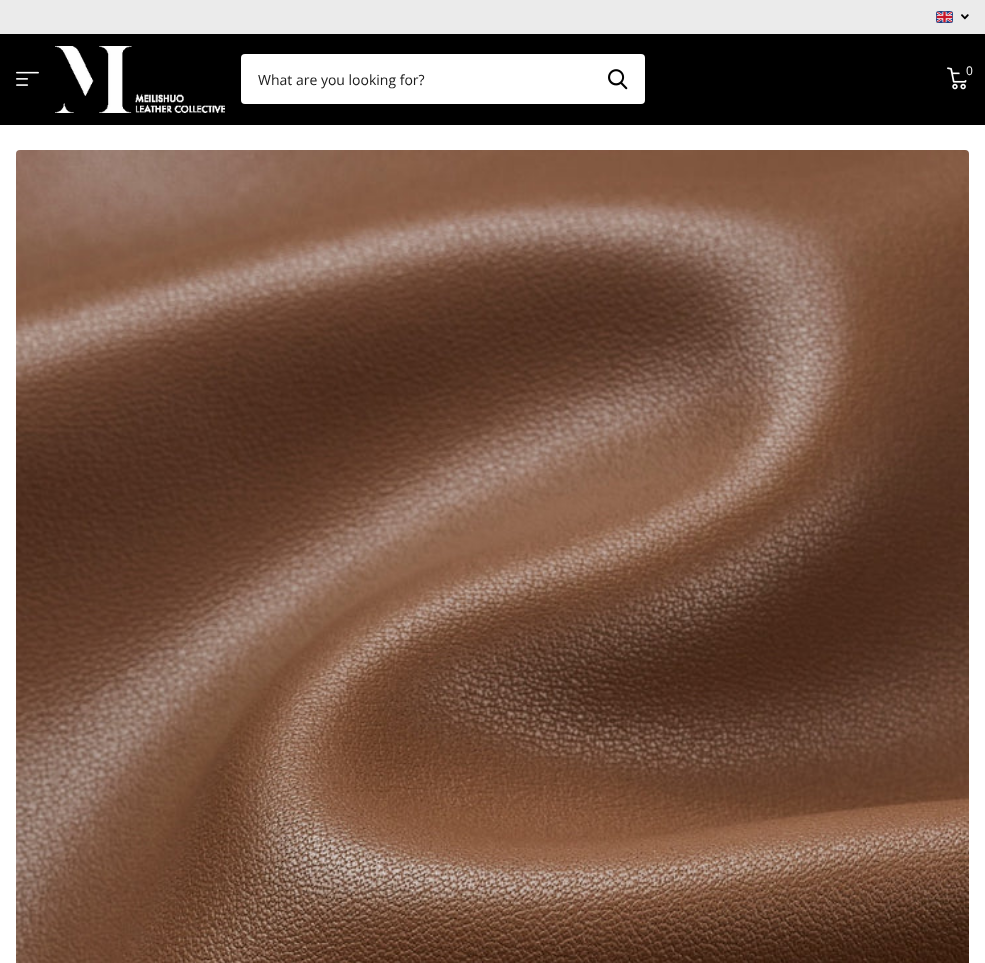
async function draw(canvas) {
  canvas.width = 985;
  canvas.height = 963;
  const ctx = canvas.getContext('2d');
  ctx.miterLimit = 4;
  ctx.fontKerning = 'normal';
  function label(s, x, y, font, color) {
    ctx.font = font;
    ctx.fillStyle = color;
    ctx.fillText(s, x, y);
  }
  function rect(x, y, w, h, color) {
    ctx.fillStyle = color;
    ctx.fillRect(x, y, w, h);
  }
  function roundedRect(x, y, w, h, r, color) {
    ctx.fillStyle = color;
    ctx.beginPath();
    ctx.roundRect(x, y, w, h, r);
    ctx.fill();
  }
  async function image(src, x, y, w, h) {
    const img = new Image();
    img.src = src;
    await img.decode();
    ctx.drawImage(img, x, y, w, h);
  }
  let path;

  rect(0, 0, 985, 963, '#fff');
  rect(0, 0, 985, 34, '#ebebeb');
  await image('assets/img1.png', 936, 11, 17, 12);
  await image('assets/img2.png', 961, 14, 8, 6);
  rect(0, 34, 985, 91, '#000');
  await image('assets/img3.png', 16, 71, 23, 15);
  await image('assets/img4.png', 55, 46, 170, 67);
  roundedRect(241, 54, 404, 50, 4, '#fff');
  label('What are you looking for?', 258, 85, '14px Open Sans', '#1a1a1a');
  await image('assets/img5.png', 608, 69, 20, 21);
  await image('assets/img6.png', 947, 67, 20, 23);
  ctx.fillStyle = '#000';
  ctx.beginPath();
  ctx.arc(969.5, 70.5, 10.5, 0, 2 * Math.PI);
  ctx.fill();
  ctx.fillStyle = '#0000001a';
  path = new Path2D('M977.5 77.5C968 83.5 956.5 71 964 61.5C958.5 65.5 957.5 73 962 78C966.5 82 973.5 82 977.5 77.5Z');
  ctx.fill(path);
  label('0', 966, 75, '12px Open Sans', '#fff');
  await image('assets/img7.png', 16, 150, 953, 813);
}

draw(document.querySelector('canvas'));
